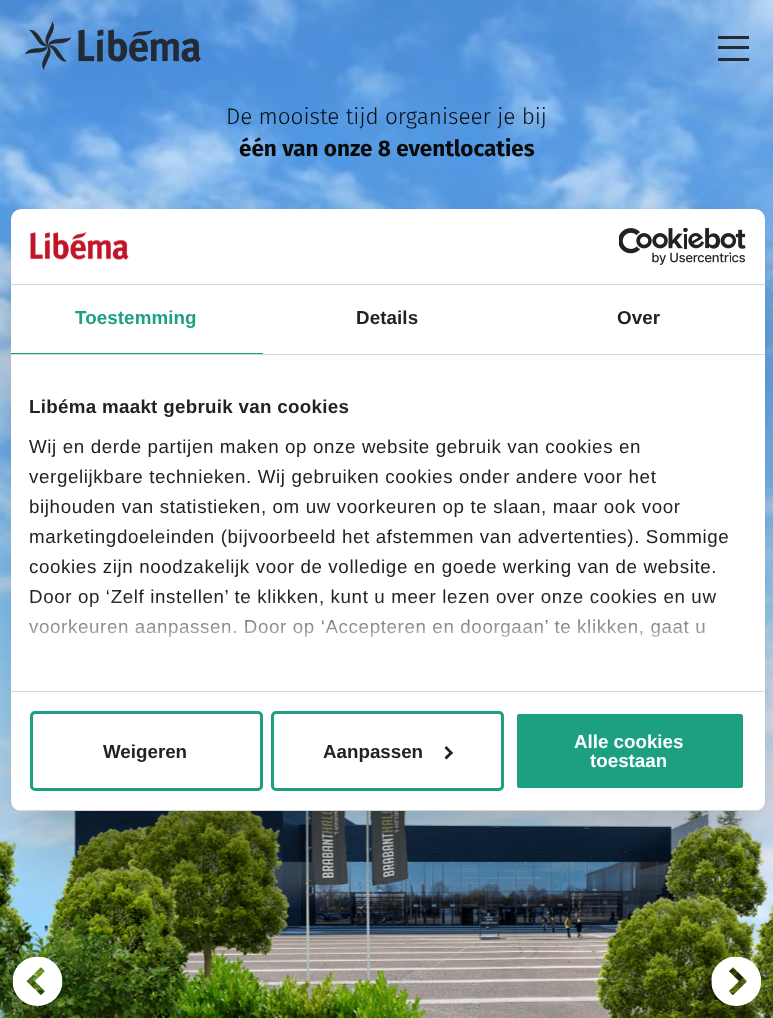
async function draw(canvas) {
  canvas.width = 773;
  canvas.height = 1018;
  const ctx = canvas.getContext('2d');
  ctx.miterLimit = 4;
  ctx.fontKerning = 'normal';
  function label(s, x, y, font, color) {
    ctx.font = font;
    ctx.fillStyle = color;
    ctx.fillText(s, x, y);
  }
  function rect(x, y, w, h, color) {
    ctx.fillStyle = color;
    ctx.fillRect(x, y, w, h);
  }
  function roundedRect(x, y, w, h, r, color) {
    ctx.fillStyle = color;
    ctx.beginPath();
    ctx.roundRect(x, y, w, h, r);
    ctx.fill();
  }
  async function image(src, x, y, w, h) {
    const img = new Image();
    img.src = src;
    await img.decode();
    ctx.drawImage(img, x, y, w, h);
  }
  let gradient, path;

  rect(0, 0, 773, 1018, '#fff');
  await image('assets/img2.png', 0, 0, 773, 1018);
  await image('assets/img1.png', 25, 21, 176, 49);
  rect(718, 36, 31, 3, '#232a34');
  rect(718, 46, 31, 3, '#232a34');
  rect(718, 58, 31, 3, '#232a34');
  label('De mooiste tijd organiseer je bij', 226, 124, '300 22.5px Fira Sans', '#0a0a0a');
  label('één van onze 8 eventlocaties', 239, 156, 'bold 22.5px Fira Sans', '#0a0a0a');
  await image('assets/img5.png', 0, 896, 20, 122);
  await image('assets/img3.png', 0, 811, 769, 207);
  await image('assets/img4.png', 0, 840, 34, 178);
  await image('assets/img6.png', 745, 905, 28, 113);
  await image('assets/img7.png', 13, 956, 50, 50);
  await image('assets/img8.png', 711, 956, 50, 50);
  ctx.fillStyle = '#0000004d';
  ctx.filter = 'blur(42.5px)';
  ctx.beginPath();
  ctx.roundRect(11, 249, 754, 602, 10);
  ctx.fill();
  ctx.filter = 'none';
  roundedRect(11, 209, 754, 602, 10, '#fff');
  rect(11, 284, 754, 1, '#d6d6d6');
  await image('assets/img9.png', 30, 232, 99, 28);
  await image('assets/img10.png', 619, 228, 127, 37);
  rect(11, 354, 754, 1, '#d6d6d6');
  rect(11, 353, 252, 1, '#1ca081');
  ctx.letterSpacing = '0.1px';
  label('Toestemming', 75, 324, 'bold 18.75px Liberation Sans', '#1ca081');
  label('Details', 356, 324, 'bold 18.75px Liberation Sans', '#222');
  label('Over', 617, 324, 'bold 18.75px Liberation Sans', '#222');
  rect(11, 691, 754, 1, '#d6d6d6');
  ctx.letterSpacing = '0.3px';
  label('Libéma maakt gebruik van cookies', 29, 413, 'bold 18.75px Liberation Sans', '#222');
  ctx.letterSpacing = '0.62px';
  label('Wij en derde partijen maken op onze website gebruik van cookies en', 29, 453, '18.75px Liberation Sans', '#222');
  label('vergelijkbare technieken. Wij gebruiken cookies onder andere voor het', 29, 483, '18.75px Liberation Sans', '#222');
  label('bijhouden van statistieken, om uw voorkeuren op te slaan, maar ook voor', 29, 513, '18.75px Liberation Sans', '#222');
  label('marketingdoeleinden (bijvoorbeeld het afstemmen van advertenties). Sommige', 29, 543, '18.75px Liberation Sans', '#222');
  label('cookies zijn noodzakelijk voor de volledige en goede werking van de website.', 29, 573, '18.75px Liberation Sans', '#222');
  label('Door op ‘Zelf instellen’ te klikken, kunt u meer lezen over onze cookies en uw', 29, 603, '18.75px Liberation Sans', '#222');
  label('voorkeuren aanpassen. Door op ‘Accepteren en doorgaan’ te klikken, gaat u', 29, 633, '18.75px Liberation Sans', '#222');
  gradient = ctx.createLinearGradient(379, 691, 379, 598);
  gradient.addColorStop(0, '#fff');
  gradient.addColorStop(0.5, '#ffffffcc');
  gradient.addColorStop(1, '#ffffff00');
  ctx.fillStyle = gradient;
  ctx.fillRect(28, 599, 686, 38);
  ctx.save();
  ctx.beginPath();
  ctx.roundRect(11, 209, 754, 602, 10);
  ctx.clip();
  rect(11, 810, 754, 1, '#d6d6d6');
  ctx.restore();
  ctx.beginPath();
  ctx.roundRect(31.5, 712.5, 230, 77, 3.5);
  ctx.strokeStyle = '#1ca081';
  ctx.lineWidth = 3;
  ctx.stroke();
  ctx.letterSpacing = '0px';
  label('Weigeren', 103, 758, 'bold 18.75px Liberation Sans', '#222');
  ctx.beginPath();
  ctx.roundRect(272.5, 712.5, 230, 77, 3.5);
  ctx.stroke();
  label('Aanpassen', 323, 758, 'bold 18.75px Liberation Sans', '#222');
  path = new Path2D('M446.5 746L453 753L451 754.5L444.5 748Z');
  ctx.fill(path);
  path = new Path2D('M451 751L453 753L446.5 759.5L444.5 757.5Z');
  ctx.fill(path);
  ctx.fillStyle = '#1ca081';
  ctx.beginPath();
  ctx.roundRect(515.5, 712.5, 229, 77, 3.5);
  ctx.fill();
  ctx.strokeStyle = '#fff';
  ctx.stroke();
  label('Alle cookies', 574, 748, 'bold 18.75px Liberation Sans', '#fff');
  label('toestaan', 590, 767, 'bold 18.75px Liberation Sans', '#fff');
}

draw(document.querySelector('canvas'));
